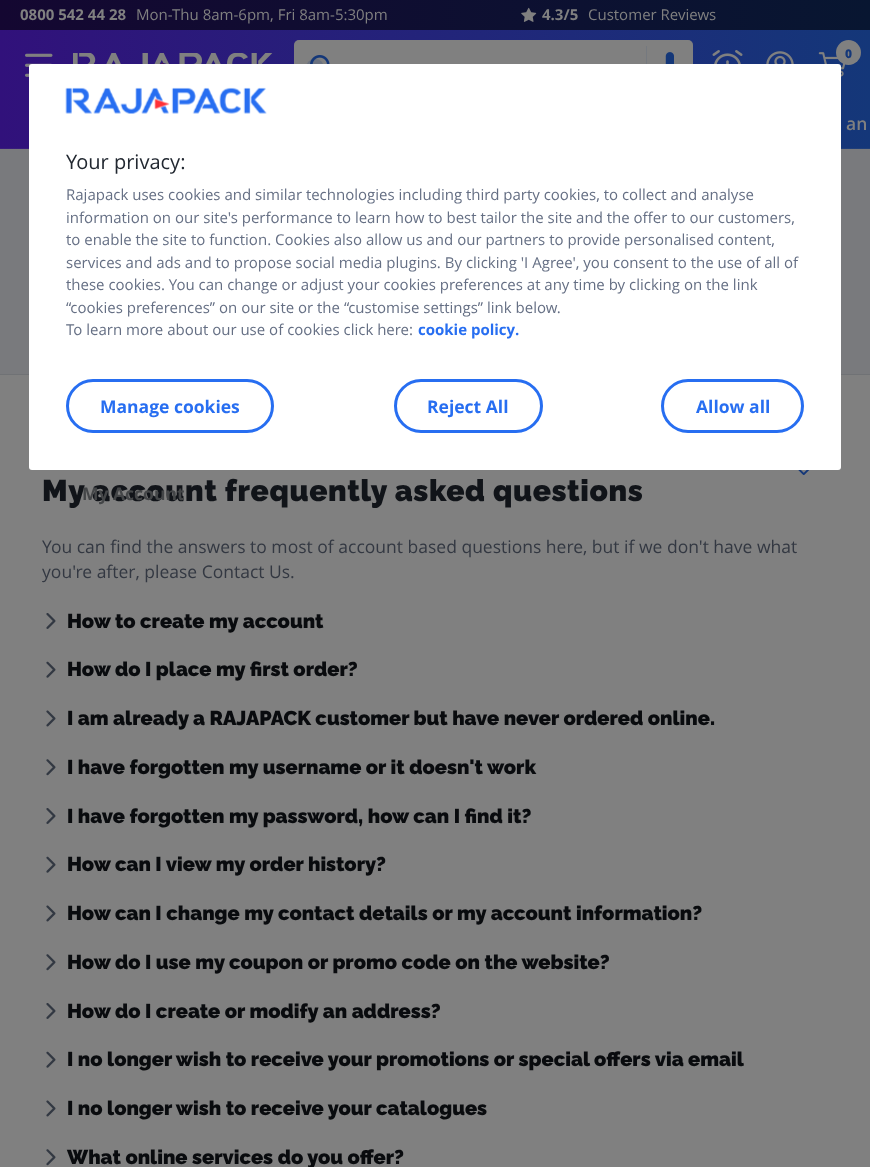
async function draw(canvas) {
  canvas.width = 870;
  canvas.height = 1167;
  const ctx = canvas.getContext('2d');
  ctx.miterLimit = 4;
  ctx.fontKerning = 'normal';
  function label(s, x, y, font, color) {
    ctx.font = font;
    ctx.fillStyle = color;
    ctx.fillText(s, x, y);
  }
  function rect(x, y, w, h, color) {
    ctx.fillStyle = color;
    ctx.fillRect(x, y, w, h);
  }
  function roundedRect(x, y, w, h, r, color) {
    ctx.fillStyle = color;
    ctx.beginPath();
    ctx.roundRect(x, y, w, h, r);
    ctx.fill();
  }
  async function image(src, x, y, w, h) {
    const img = new Image();
    img.src = src;
    await img.decode();
    ctx.drawImage(img, x, y, w, h);
  }
  let gradient;

  rect(0, 0, 870, 1167, '#797a7d');
  gradient = ctx.createLinearGradient(0, 74, 870, 74);
  gradient.addColorStop(0, '#31117b');
  gradient.addColorStop(1, '#143779');
  ctx.fillStyle = gradient;
  ctx.fillRect(0, 30, 870, 118);
  gradient = ctx.createLinearGradient(0, 74, 870, 74);
  gradient.addColorStop(0, '#391c7b');
  gradient.addColorStop(1, '#1f3f79');
  ctx.fillStyle = gradient;
  ctx.fillRect(0, 148, 870, 1);
  gradient = ctx.createLinearGradient(0, 15, 870, 15);
  gradient.addColorStop(0, '#140731');
  gradient.addColorStop(1, '#081631');
  ctx.fillStyle = gradient;
  ctx.fillRect(0, 0, 870, 30);
  label('0800 542 44 28', 20, 20, 'bold 15px Open Sans', '#808080');
  label('Mon-Thu 8am-6pm, Fri 8am-5:30pm', 136, 20, '15px Open Sans', '#808080');
  await image('assets/img1.png', 521, 7, 16, 15);
  label('4.3/5', 542, 20, 'bold 15px Open Sans', '#808080');
  label('Customer Reviews', 588, 20, '15px Open Sans', '#808080');
  await image('assets/img2.png', 25, 53, 28, 24);
  await image('assets/img3.png', 73, 53, 200, 11);
  roundedRect(294, 40, 399, 50, 5, '#808080');
  ctx.beginPath();
  ctx.roundRect(294.5, 40.5, 398, 49, 4.5);
  ctx.strokeStyle = '#8080804d';
  ctx.stroke();
  roundedRect(306, 59, 18, 17, 8.5, '#6a717f');
  await image('assets/img4.png', 310, 55, 20, 9);
  rect(646, 46, 1, 18, '#75797f');
  await image('assets/img5.png', 665, 52, 9, 12);
  await image('assets/img6.png', 712, 50, 31, 14);
  await image('assets/img7.png', 766, 51, 28, 13);
  ctx.fillStyle = '#808080';
  ctx.beginPath();
  ctx.arc(848.5, 52.5, 12.5, 0, 2 * Math.PI);
  ctx.fill();
  label('0', 845, 58, '800 12px Open Sans', '#143779');
  await image('assets/img8.png', 818, 52, 29, 25);
  label('an', 846, 130, '600 17.5px Open Sans', '#808080');
  rect(0, 375, 870, 792, '#808080');
  rect(0, 374, 870, 1, '#707275');
  roundedRect(29, 64, 812, 406, 3, '#fff');
  await image('assets/img9.png', 65, 87, 202, 27);
  label('Your privacy:', 66, 169, '20px Open Sans', '#222831');
  label('Rajapack uses cookies and similar technologies including third party cookies, to collect and analyse', 66, 200, '15px Open Sans', '#656f84');
  label('information on our site\'s performance to learn how to best tailor the site and the offer to our customers,', 66, 223, '15px Open Sans', '#656f84');
  label('to enable the site to function. Cookies also allow us and our partners to provide personalised content,', 66, 245, '15px Open Sans', '#656f84');
  label('services and ads and to propose social media plugins. By clicking \'I Agree\', you consent to the use of all of', 66, 268, '15px Open Sans', '#656f84');
  label('these cookies. You can change or adjust your cookies preferences at any time by clicking on the link', 66, 290, '15px Open Sans', '#656f84');
  label('“cookies preferences” on our site or the “customise settings” link below.', 66, 313, '15px Open Sans', '#656f84');
  label('To learn more about our use of cookies click here:', 66, 335, '15px Open Sans', '#656f84');
  label('cookie policy.', 418, 335, 'bold 15px Open Sans', '#276ef1');
  ctx.beginPath();
  ctx.roundRect(67.5, 380.5, 205, 51, 25.5);
  ctx.strokeStyle = '#276ef1';
  ctx.lineWidth = 3;
  ctx.stroke();
  label('Manage cookies', 100, 413, 'bold 17.5px Open Sans', '#276ef1');
  ctx.beginPath();
  ctx.roundRect(395.5, 380.5, 146, 51, 25.5);
  ctx.stroke();
  label('Reject All', 427, 413, 'bold 17.5px Open Sans', '#276ef1');
  ctx.beginPath();
  ctx.roundRect(662.5, 380.5, 140, 51, 25.5);
  ctx.stroke();
  label('Allow all', 696, 413, 'bold 17.5px Open Sans', '#276ef1');
  ctx.letterSpacing = '0.6px';
  label('My account frequently asked questions', 42, 501, '900 30px Raleway', '#111419');
  ctx.letterSpacing = '0px';
  label('You can find the answers to most of account based questions here, but if we don\'t have what', 42, 553, '17.5px Open Sans', '#333842');
  label('you\'re after, please Contact Us.', 42, 578, '17.5px Open Sans', '#333842');
  await image('assets/img10.png', 46, 613, 10, 16);
  label('How to create my account', 67, 628, '900 20px Raleway', '#090b0e');
  await image('assets/img11.png', 46, 661, 10, 17);
  label('How do I place my first order?', 67, 676, '900 20px Raleway', '#090b0e');
  await image('assets/img12.png', 46, 710, 10, 17);
  label('I am already a RAJAPACK customer but have never ordered online.', 67, 725, '900 20px Raleway', '#090b0e');
  await image('assets/img13.png', 46, 759, 10, 17);
  label('I have forgotten my username or it doesn\'t work', 67, 774, '900 20px Raleway', '#090b0e');
  await image('assets/img10.png', 46, 808, 10, 16);
  label('I have forgotten my password, how can I find it?', 67, 823, '900 20px Raleway', '#090b0e');
  await image('assets/img11.png', 46, 856, 10, 17);
  label('How can I view my order history?', 67, 871, '900 20px Raleway', '#090b0e');
  await image('assets/img12.png', 46, 905, 10, 17);
  label('How can I change my contact details or my account information?', 67, 920, '900 20px Raleway', '#090b0e');
  await image('assets/img13.png', 46, 954, 10, 17);
  label('How do I use my coupon or promo code on the website?', 67, 969, '900 20px Raleway', '#090b0e');
  await image('assets/img10.png', 46, 1003, 10, 16);
  label('How do I create or modify an address?', 67, 1018, '900 20px Raleway', '#090b0e');
  await image('assets/img11.png', 46, 1051, 10, 17);
  label('I no longer wish to receive your promotions or special offers via email', 67, 1066, '900 20px Raleway', '#090b0e');
  await image('assets/img12.png', 46, 1100, 10, 17);
  label('I no longer wish to receive your catalogues', 67, 1115, '900 20px Raleway', '#090b0e');
  await image('assets/img13.png', 46, 1149, 10, 17);
  label('What online services do you offer?', 67, 1164, '900 20px Raleway', '#090b0e');
  await image('assets/img14.png', 798, 470, 12, 5);
  label('My Account', 82, 500, 'bold 17.5px Open Sans', '#444648');
}

draw(document.querySelector('canvas'));
